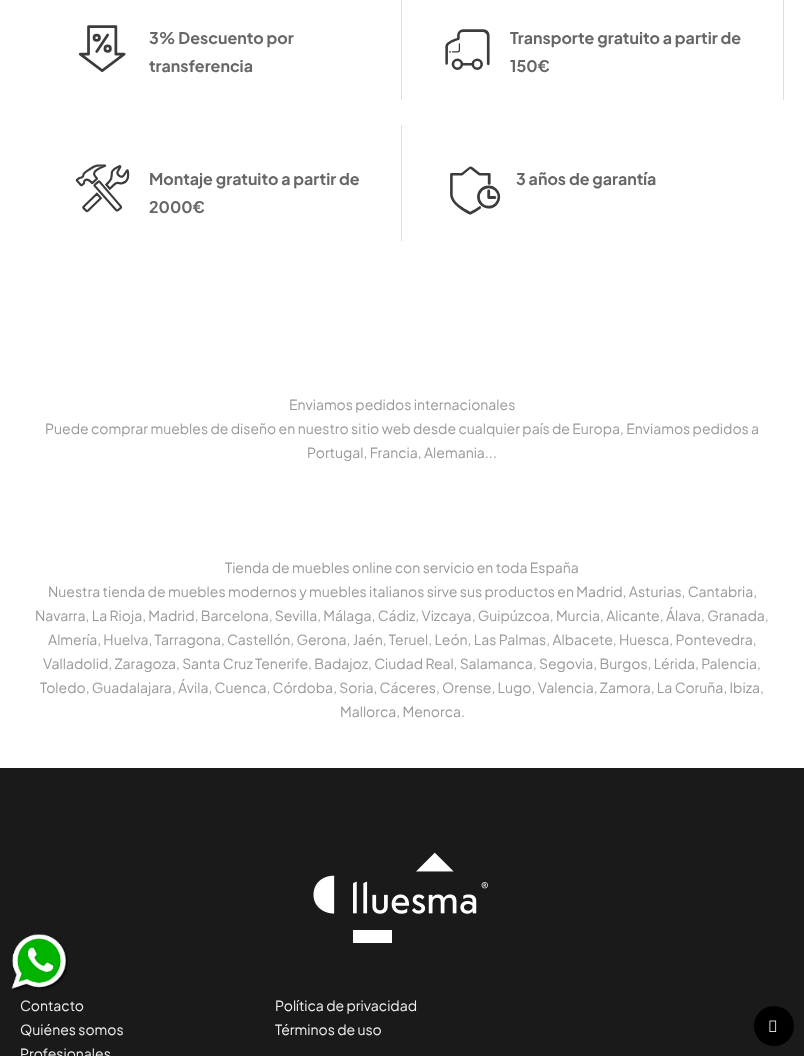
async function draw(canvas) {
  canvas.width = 804;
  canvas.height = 1056;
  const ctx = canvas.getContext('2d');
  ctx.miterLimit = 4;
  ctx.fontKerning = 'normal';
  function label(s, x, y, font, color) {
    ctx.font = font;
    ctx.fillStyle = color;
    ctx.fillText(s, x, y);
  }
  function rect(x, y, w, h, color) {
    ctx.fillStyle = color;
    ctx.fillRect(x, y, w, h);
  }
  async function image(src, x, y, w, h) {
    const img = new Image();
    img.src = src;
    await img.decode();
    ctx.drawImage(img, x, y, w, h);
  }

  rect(0, 0, 804, 1056, '#fff');
  await image('assets/img1.png', 78, 25, 48, 47);
  label('3% Descuento por', 149, 44, 'bold 16px Plus Jakarta Sans', '#666');
  label('transferencia', 149, 72, 'bold 16px Plus Jakarta Sans', '#666');
  rect(401, 0, 1, 100, '#dfdfdf');
  await image('assets/img2.png', 445, 29, 45, 41);
  label('Transporte gratuito a partir de', 510, 44, 'bold 16px Plus Jakarta Sans', '#666');
  label('150€', 510, 72, 'bold 16px Plus Jakarta Sans', '#666');
  rect(783, 0, 1, 100, '#dfdfdf');
  await image('assets/img3.png', 75, 164, 55, 49);
  label('Montaje gratuito a partir de', 149, 185, 'bold 16px Plus Jakarta Sans', '#666');
  label('2000€', 149, 213, 'bold 16px Plus Jakarta Sans', '#666');
  rect(401, 125, 1, 116, '#dfdfdf');
  await image('assets/img4.png', 450, 166, 51, 49);
  label('3 años de garantía', 516, 185, 'bold 16px Plus Jakarta Sans', '#666');
  label('Enviamos pedidos internacionales', 289, 410, '14px Plus Jakarta Sans', '#999');
  label('Puede comprar muebles de diseño en nuestro sitio web desde cualquier país de Europa, Enviamos pedidos a', 45, 434, '14px Plus Jakarta Sans', '#999');
  label('Portugal, Francia, Alemania...', 307, 458, '14px Plus Jakarta Sans', '#999');
  label('Tienda de muebles online con servicio en toda España', 225, 573, '14px Plus Jakarta Sans', '#999');
  label('Nuestra tienda de muebles modernos y muebles italianos sirve sus productos en Madrid, Asturias, Cantabria,', 48, 597, '14px Plus Jakarta Sans', '#999');
  label('Navarra, La Rioja, Madrid, Barcelona, Sevilla, Málaga, Cádiz, Vizcaya, Guipúzcoa, Murcia, Alicante, Álava, Granada,', 35, 621, '14px Plus Jakarta Sans', '#999');
  label('Almería, Huelva, Tarragona, Castellón, Gerona, Jaén, Teruel, León, Las Palmas, Albacete, Huesca, Pontevedra,', 48, 645, '14px Plus Jakarta Sans', '#999');
  label('Valladolid, Zaragoza, Santa Cruz Tenerife, Badajoz, Ciudad Real, Salamanca, Segovia, Burgos, Lérida, Palencia,', 43, 669, '14px Plus Jakarta Sans', '#999');
  label('Toledo, Guadalajara, Ávila, Cuenca, Córdoba, Soria, Cáceres, Orense, Lugo, Valencia, Zamora, La Coruña, Ibiza,', 40, 693, '14px Plus Jakarta Sans', '#999');
  label('Mallorca, Menorca.', 340, 717, '14px Plus Jakarta Sans', '#999');
  rect(0, 768, 804, 288, '#1a1a1a');
  await image('assets/img5.png', 11, 934, 57, 57);
  await image('assets/img6.png', 313, 852, 175, 91);
  label('Contacto', 20, 1011, '14px Plus Jakarta Sans', '#f1f1f1');
  label('Quiénes somos', 20, 1035, '14px Plus Jakarta Sans', '#f1f1f1');
  label('Profesionales', 20, 1059, '14px Plus Jakarta Sans', '#f1f1f1');
  label('Política de privacidad', 275, 1011, '14px Plus Jakarta Sans', '#f1f1f1');
  label('Términos de uso', 275, 1035, '14px Plus Jakarta Sans', '#f1f1f1');
  ctx.fillStyle = '#000';
  ctx.beginPath();
  ctx.arc(774, 1026, 20, 0, 2 * Math.PI);
  ctx.fill();
  await image('assets/img7.png', 769, 1020, 8, 12);
}

draw(document.querySelector('canvas'));
